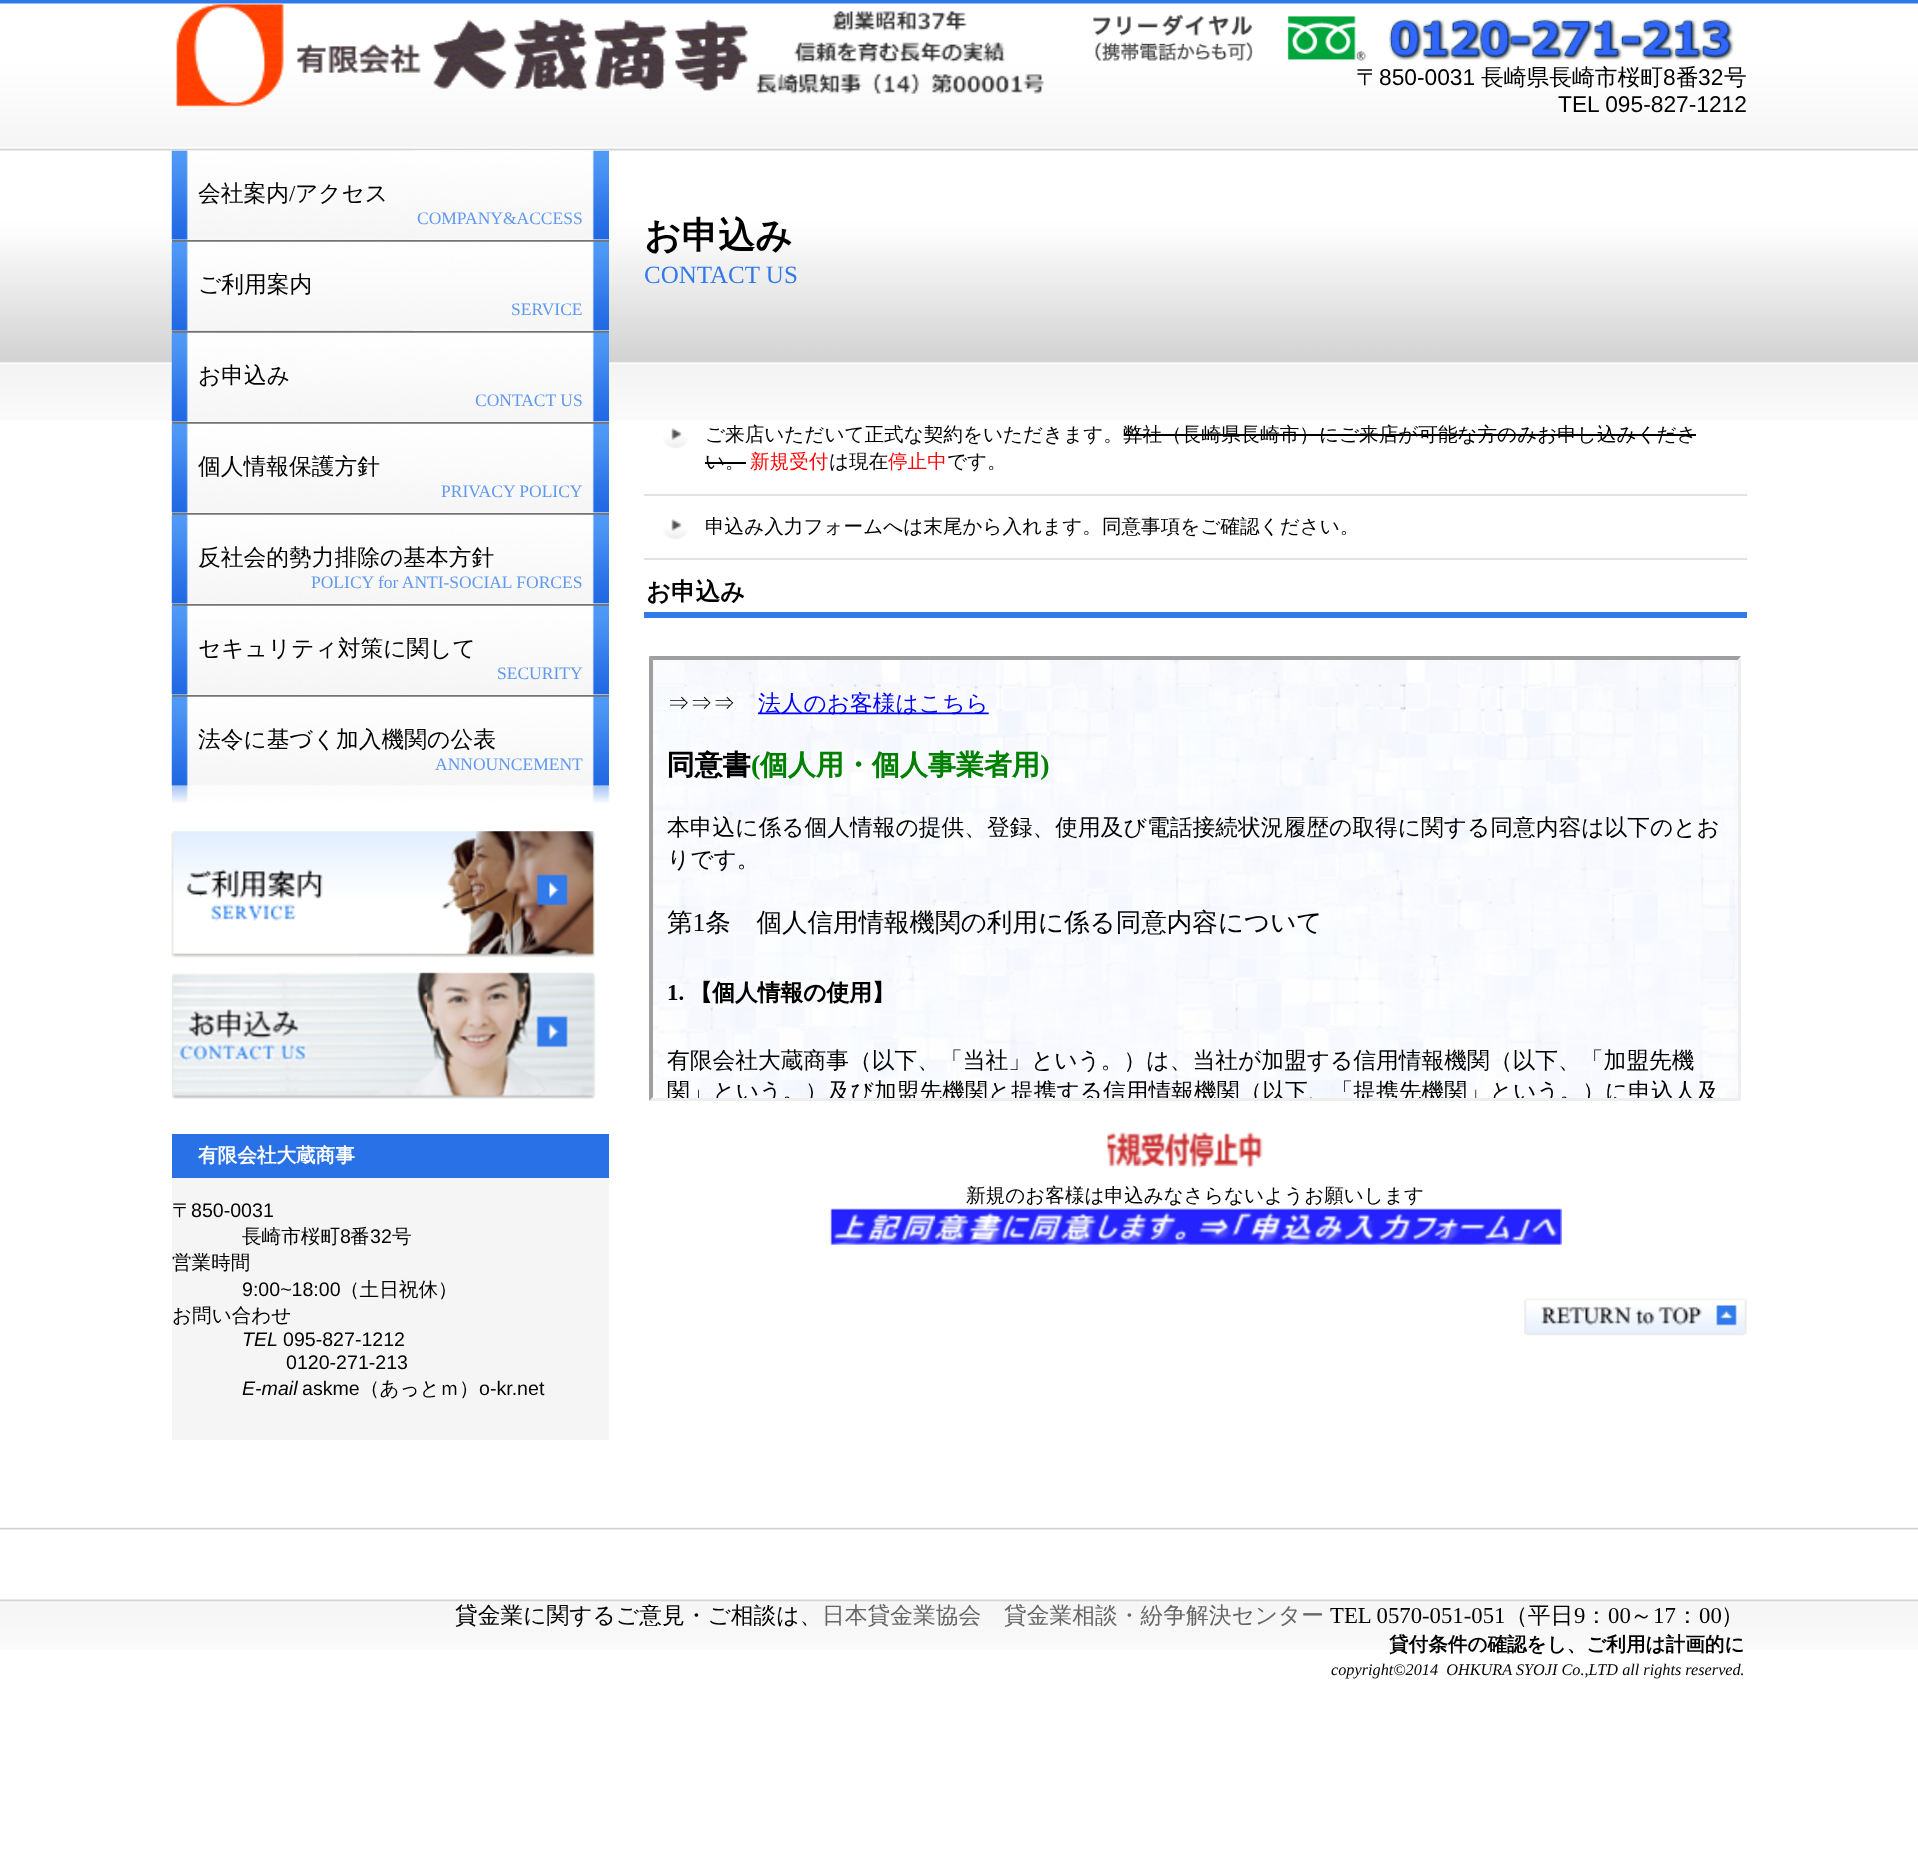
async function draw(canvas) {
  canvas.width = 1918;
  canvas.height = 1862;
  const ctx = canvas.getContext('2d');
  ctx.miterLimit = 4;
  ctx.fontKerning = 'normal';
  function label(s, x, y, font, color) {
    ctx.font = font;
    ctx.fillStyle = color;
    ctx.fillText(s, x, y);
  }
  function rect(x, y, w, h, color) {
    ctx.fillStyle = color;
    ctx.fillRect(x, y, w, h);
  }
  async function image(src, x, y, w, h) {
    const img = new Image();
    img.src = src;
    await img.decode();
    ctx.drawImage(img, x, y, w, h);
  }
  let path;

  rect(0, 0, 1918, 1862, '#fff');
  await image('assets/img1.png', 0, 0, 1918, 420);
  await image('assets/img2.png', 0, 1527, 1918, 123);
  await image('assets/img3.png', 176, 4, 869, 103);
  await image('assets/img4.png', 1093, 14, 642, 47);
  label('〒', 1356, 85, '500 22.75px WenQuanYi Zen Hei', '#000');
  label('850-0031', 1379, 85, '22.75px Liberation Sans', '#000');
  label('長崎県長崎市桜町', 1481, 85, '500 22.75px WenQuanYi Zen Hei', '#000');
  label('8', 1663, 85, '22.75px Liberation Sans', '#000');
  label('番', 1676, 85, '500 22.75px WenQuanYi Zen Hei', '#000');
  label('32', 1698, 85, '22.75px Liberation Sans', '#000');
  label('号', 1724, 85, '500 22.75px WenQuanYi Zen Hei', '#000');
  label('TEL 095-827-1212', 1558, 112, '22.75px Liberation Sans', '#000');
  await image('assets/img5.png', 172, 785, 438, 18);
  await image('assets/img6.png', 413, 150, 196, 90);
  await image('assets/img7.png', 171, 150, 438, 90);
  label('会社案内', 198, 201, '500 22.75px WenQuanYi Zen Hei', '#000');
  label('/', 289, 201, '22.75px Liberation Serif', '#000');
  label('アクセス', 295, 201, '500 22.75px WenQuanYi Zen Hei', '#000');
  label('COMPANY&ACCESS', 417, 224, '17.5px Liberation Serif', '#6199ee');
  await image('assets/img8.png', 413, 239, 196, 92);
  rect(172, 240, 437, 2, '#737373');
  await image('assets/img9.png', 171, 241, 438, 90);
  label('ご利用案内', 198, 292, '500 22.75px WenQuanYi Zen Hei', '#000');
  label('SERVICE', 511, 315, '17.5px Liberation Serif', '#6199ee');
  await image('assets/img10.png', 413, 330, 196, 92);
  rect(172, 331, 437, 2, '#737373');
  await image('assets/img11.png', 171, 332, 438, 90);
  label('お申込み', 198, 383, '500 22.75px WenQuanYi Zen Hei', '#000');
  label('CONTACT US', 475, 406, '17.5px Liberation Serif', '#6199ee');
  await image('assets/img12.png', 574, 421, 35, 92);
  rect(172, 422, 437, 2, '#737373');
  await image('assets/img13.png', 171, 423, 438, 90);
  label('個人情報保護方針', 198, 474, '500 22.75px WenQuanYi Zen Hei', '#000');
  label('PRIVACY POLICY', 441, 497, '17.5px Liberation Serif', '#6199ee');
  await image('assets/img14.png', 574, 512, 35, 92);
  rect(172, 513, 437, 2, '#737373');
  await image('assets/img13.png', 171, 514, 438, 90);
  label('反社会的勢力排除の基本方針', 198, 565, '500 22.75px WenQuanYi Zen Hei', '#000');
  label('POLICY for ANTI-SOCIAL FORCES', 311, 588, '17.5px Liberation Serif', '#6199ee');
  await image('assets/img15.png', 574, 603, 35, 92);
  rect(172, 604, 437, 2, '#737373');
  await image('assets/img13.png', 171, 605, 438, 90);
  label('セキュリティ対策に関して', 198, 656, '500 22.75px WenQuanYi Zen Hei', '#000');
  label('SECURITY', 497, 679, '17.5px Liberation Serif', '#6199ee');
  await image('assets/img16.png', 574, 694, 35, 92);
  rect(172, 695, 437, 2, '#737373');
  await image('assets/img17.png', 171, 696, 438, 90);
  label('法令に基づく加入機関の公表', 198, 747, '500 22.75px WenQuanYi Zen Hei', '#000');
  label('ANNOUNCEMENT', 435, 770, '17.5px Liberation Serif', '#6199ee');
  label('お申込み', 644, 248, 'bold 36.75px WenQuanYi Zen Hei', '#000');
  label('CONTACT US', 644, 283, '25px Liberation Serif', '#3179e9');
  await image('assets/img18.png', 663, 428, 25, 21);
  rect(644, 494, 1103, 2, '#e2e2e2');
  label('ご来店いただいて正式な契約をいただきます。', 705, 441, '500 19.6px WenQuanYi Zen Hei', '#000');
  label('弊社（長崎県長崎市）にご来店が可能な方のみお申し込みくださ', 1123, 441, '500 19.6px WenQuanYi Zen Hei', '#000');
  rect(1124, 434, 572, 2, '#000');
  label('い。', 705, 468, '500 19.6px WenQuanYi Zen Hei', '#000');
  rect(705, 462, 41, 2, '#000');
  label('新規受付', 750, 468, '500 19.6px WenQuanYi Zen Hei', '#f00');
  label('は現在', 829, 468, '500 19.6px WenQuanYi Zen Hei', '#000');
  label('停止中', 888, 468, '500 19.6px WenQuanYi Zen Hei', '#f00');
  label('です。', 947, 468, '500 19.6px WenQuanYi Zen Hei', '#000');
  await image('assets/img18.png', 663, 519, 25, 21);
  rect(644, 558, 1103, 2, '#e2e2e2');
  label('申込み入力フォームへは末尾から入れます。同意事項をご確認ください。', 705, 533, '500 19.6px WenQuanYi Zen Hei', '#000');
  rect(644, 612, 1103, 6, '#317aea');
  label('お申込み', 646, 600, 'bold 24.5px WenQuanYi Zen Hei', '#000');
  ctx.fillStyle = '#9f9f9f';
  path = new Path2D('M649 656H1741L1738 660H653Z');
  ctx.fill(path);
  ctx.fillStyle = '#eee';
  path = new Path2D('M1741 656V1101L1738 1097V660Z');
  ctx.fill(path);
  path = new Path2D('M1741 1101H649L653 1097H1738Z');
  ctx.fill(path);
  ctx.fillStyle = '#9f9f9f';
  path = new Path2D('M649 1101V656L653 660V1097Z');
  ctx.fill(path);
  await image('assets/img19.png', 653, 660, 1085, 438);
  await image('assets/img20.png', 1107, 1131, 156, 37);
  label('新規のお客様は申込みなさらないようお願いします', 966, 1202, '500 19.6px WenQuanYi Zen Hei', '#000');
  await image('assets/img21.png', 830, 1208, 732, 37);
  await image('assets/img22.png', 1524, 1298, 223, 38);
  await image('assets/img23.png', 171, 831, 424, 127);
  await image('assets/img24.png', 172, 972, 424, 127);
  rect(172, 1178, 437, 262, '#f5f5f5');
  rect(172, 1134, 437, 44, '#2971e6');
  label('有限会社大蔵商事', 198, 1162, 'bold 19.6px WenQuanYi Zen Hei', '#fff');
  label('〒', 172, 1217, '500 19.6px WenQuanYi Zen Hei', '#000');
  label('850-0031', 191, 1217, '19.6px Liberation Sans', '#000');
  label('長崎市桜町', 242, 1243, '500 19.6px WenQuanYi Zen Hei', '#000');
  label('8', 340, 1243, '19.6px Liberation Sans', '#000');
  label('番', 350, 1243, '500 19.6px WenQuanYi Zen Hei', '#000');
  label('32', 370, 1243, '19.6px Liberation Sans', '#000');
  label('号', 392, 1243, '500 19.6px WenQuanYi Zen Hei', '#000');
  label('営業時間', 172, 1269, '500 19.6px WenQuanYi Zen Hei', '#000');
  label('9:00~18:00', 242, 1296, '19.6px Liberation Sans', '#000');
  label('（土日祝休）', 340, 1296, '500 19.6px WenQuanYi Zen Hei', '#000');
  label('お問い合わせ', 172, 1322, '500 19.6px WenQuanYi Zen Hei', '#000');
  label('TEL', 242, 1346, 'italic 19.6px Liberation Sans', '#000');
  label('095-827-1212', 283, 1346, '19.6px Liberation Sans', '#000');
  label('0120-271-213', 286, 1369, '19.6px Liberation Sans', '#000');
  label('E-mail', 242, 1395, 'italic 19.6px Liberation Sans', '#000');
  label('askme', 302, 1395, '19.6px Liberation Sans', '#000');
  label('（あっとｍ）', 360, 1395, '500 19.6px WenQuanYi Zen Hei', '#000');
  label('o-kr.net', 479, 1395, '19.6px Liberation Sans', '#000');
  label('貸金業に関するご意見・ご相談は、', 455, 1623, '500 22.75px WenQuanYi Zen Hei', '#000');
  label('日本貸金業協会　貸金業相談・紛争解決センター', 822, 1623, '500 22.75px WenQuanYi Zen Hei', '#666');
  label('TEL 0570-051-051', 1330, 1623, '22.75px Liberation Serif', '#000');
  label('（平日', 1505, 1623, '500 22.75px WenQuanYi Zen Hei', '#000');
  label('9', 1574, 1623, '22.75px Liberation Serif', '#000');
  label('：', 1585, 1623, '500 22.75px WenQuanYi Zen Hei', '#000');
  label('00', 1608, 1623, '22.75px Liberation Serif', '#000');
  label('～', 1630, 1623, '500 22.75px WenQuanYi Zen Hei', '#000');
  label('17', 1653, 1623, '22.75px Liberation Serif', '#000');
  label('：', 1676, 1623, '500 22.75px WenQuanYi Zen Hei', '#000');
  label('00', 1699, 1623, '22.75px Liberation Serif', '#000');
  label('）', 1721, 1623, '500 22.75px WenQuanYi Zen Hei', '#000');
  label('貸付条件の確認をし、ご利用は計画的に', 1389, 1651, 'bold 19.6px WenQuanYi Zen Hei', '#000');
  label('copyright©2014  OHKURA SYOJI Co.,LTD all rights reserved', 1331, 1675, 'italic 16.25px Liberation Serif', '#000');
  label('.', 1740, 1675, '16.25px Liberation Serif', '#000');
}

draw(document.querySelector('canvas'));
